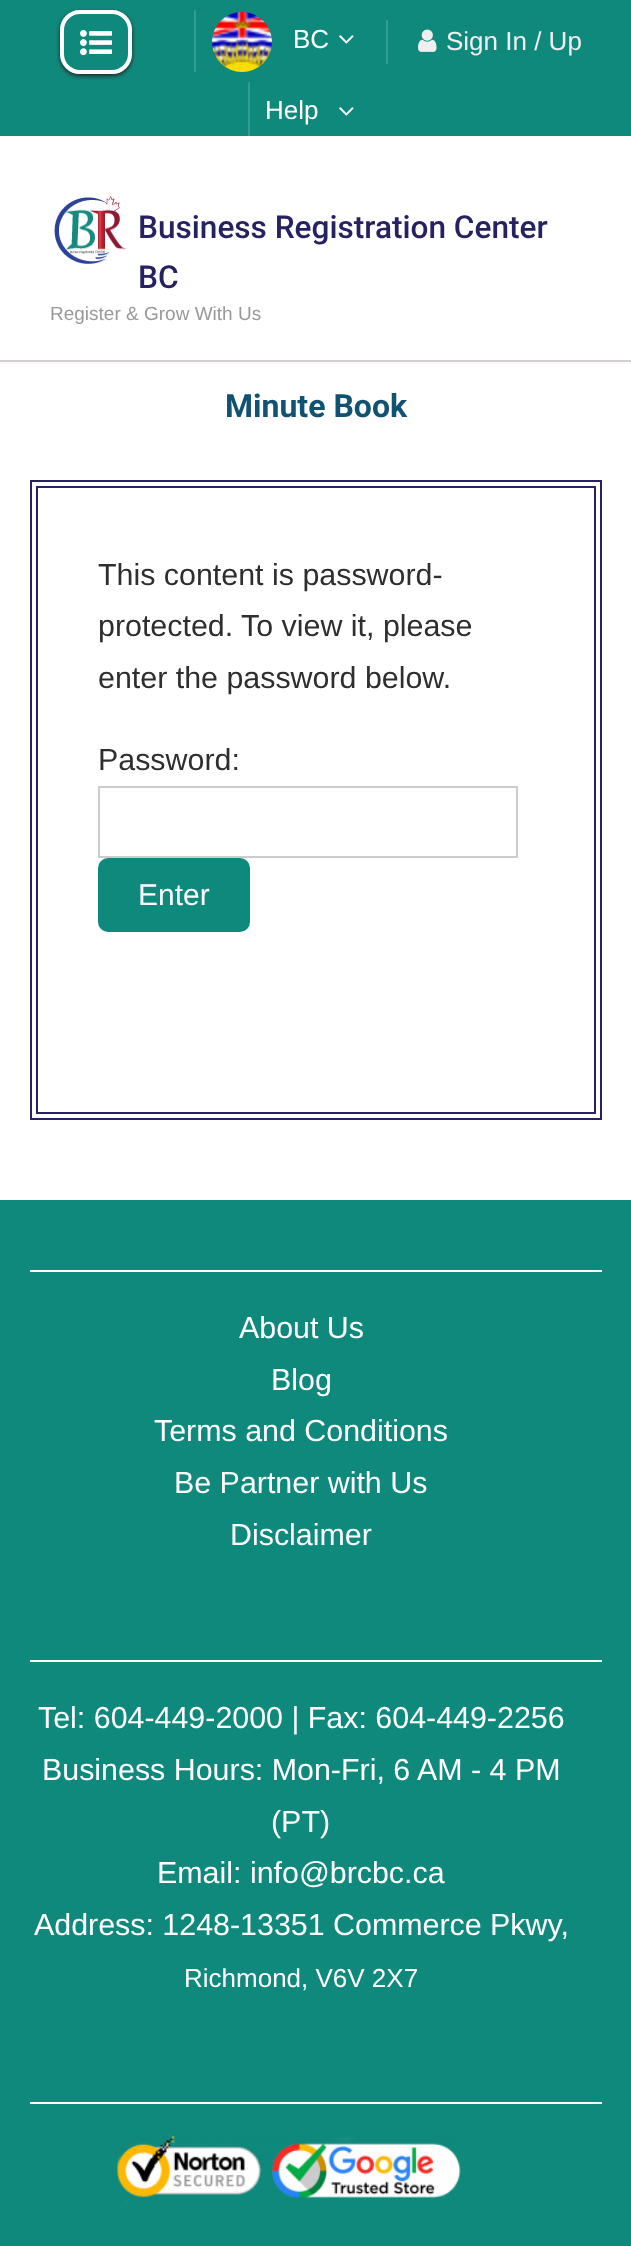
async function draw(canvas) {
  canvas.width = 631;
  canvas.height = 2246;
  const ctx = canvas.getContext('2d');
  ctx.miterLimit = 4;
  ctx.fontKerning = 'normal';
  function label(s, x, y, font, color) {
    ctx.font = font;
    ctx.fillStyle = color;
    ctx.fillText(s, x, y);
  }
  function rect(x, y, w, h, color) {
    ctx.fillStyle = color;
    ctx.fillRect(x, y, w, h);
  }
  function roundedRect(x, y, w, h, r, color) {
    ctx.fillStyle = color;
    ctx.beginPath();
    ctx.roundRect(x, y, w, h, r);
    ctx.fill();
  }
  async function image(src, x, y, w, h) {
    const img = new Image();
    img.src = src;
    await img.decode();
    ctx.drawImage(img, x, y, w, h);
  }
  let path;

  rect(0, 0, 631, 2246, '#fff');
  rect(0, 0, 631, 136, '#10897d');
  ctx.save();
  path = new Path2D('M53 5H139V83H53ZM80 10H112C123 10 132 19 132 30V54C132 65 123 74 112 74H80C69 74 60 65 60 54V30C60 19 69 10 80 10Z');
  ctx.clip(path, 'evenodd');
  ctx.fillStyle = '#242424';
  ctx.filter = 'blur(2px)';
  ctx.beginPath();
  ctx.roundRect(60, 12, 72, 64, 20);
  ctx.fill();
  ctx.filter = 'none';
  ctx.restore();
  ctx.beginPath();
  ctx.roundRect(62, 12, 68, 60, 18);
  ctx.strokeStyle = '#fffffe';
  ctx.lineWidth = 4;
  ctx.stroke();
  await image('assets/img1.png', 80, 30, 32, 26);
  rect(194, 10, 2, 62, '#349b91');
  await image('assets/img2.png', 212, 12, 60, 60);
  label('BC', 293, 48, '26px Liberation Sans', '#fff');
  await image('assets/img3.png', 339, 35, 15, 9);
  rect(386, 20, 2, 44, '#349b91');
  await image('assets/img4.png', 418, 29, 19, 23);
  label('Sign In / Up', 446, 50, '26px Liberation Sans', '#efefef');
  rect(248, 82, 2, 54, '#349b91');
  label('Help', 265, 119, '26px Liberation Sans', '#fff');
  await image('assets/img3.png', 339, 107, 15, 9);
  await image('assets/img5.png', 54, 196, 72, 68);
  label('Business Registration Center', 138, 238, '500 31.6px Roboto', '#262262');
  label('BC', 138, 288, '500 31.6px Roboto', '#262262');
  label('Register & Grow With Us', 50, 320, '19px Liberation Sans', '#999');
  rect(0, 360, 631, 2, '#d3ced2');
  label('Minute Book', 225, 417, 'bold 32px Roboto', '#115172');
  ctx.strokeStyle = '#262262';
  ctx.lineWidth = 2;
  ctx.strokeRect(31, 481, 570, 638);
  ctx.strokeRect(37, 487, 558, 626);
  label('This content is password-', 98, 585, '30.4px Liberation Sans', '#2f2e2e');
  label('protected. To view it, please', 98, 636, '30.4px Liberation Sans', '#2f2e2e');
  label('enter the password below.', 98, 688, '30.4px Liberation Sans', '#2f2e2e');
  label('Password:', 98, 770, '30.4px Liberation Sans', '#2f2e2e');
  ctx.strokeStyle = '#ccc';
  ctx.strokeRect(99, 787, 418, 70);
  roundedRect(98, 858, 152, 74, 10, '#10897d');
  label('Enter', 138, 905, '30px Liberation Sans', '#fff');
  rect(0, 1200, 631, 1046, '#10897d');
  rect(30, 1270, 572, 2, '#fff');
  label('About Us', 239, 1338, '30.4px Liberation Sans', '#fff');
  label('Blog', 271, 1390, '30.4px Liberation Sans', '#fff');
  label('Terms and Conditions', 154, 1441, '30.4px Liberation Sans', '#fff');
  label('Be Partner with Us', 174, 1493, '30.4px Liberation Sans', '#fff');
  label('Disclaimer', 230, 1545, '30.4px Liberation Sans', '#fff');
  rect(30, 1660, 572, 2, '#fff');
  label('Tel: 604-449-2000 | Fax: 604-449-2256', 38, 1728, '30.4px Liberation Sans', '#fff');
  label('Business Hours: Mon-Fri, 6 AM - 4 PM', 42, 1780, '30.4px Liberation Sans', '#fff');
  label('(PT)', 271, 1832, '30.4px Liberation Sans', '#fff');
  label('Email: info@brcbc.ca', 157, 1883, '30.4px Liberation Sans', '#fff');
  label('Address: 1248-13351 Commerce Pkwy,', 34, 1935, '30.4px Liberation Sans', '#fff');
  label('Richmond, V6V 2X7', 184, 1987, '26px Liberation Sans', '#fff');
  rect(30, 2102, 572, 2, '#fff');
  await image('assets/img6.png', 117, 2134, 344, 70);
}

draw(document.querySelector('canvas'));
